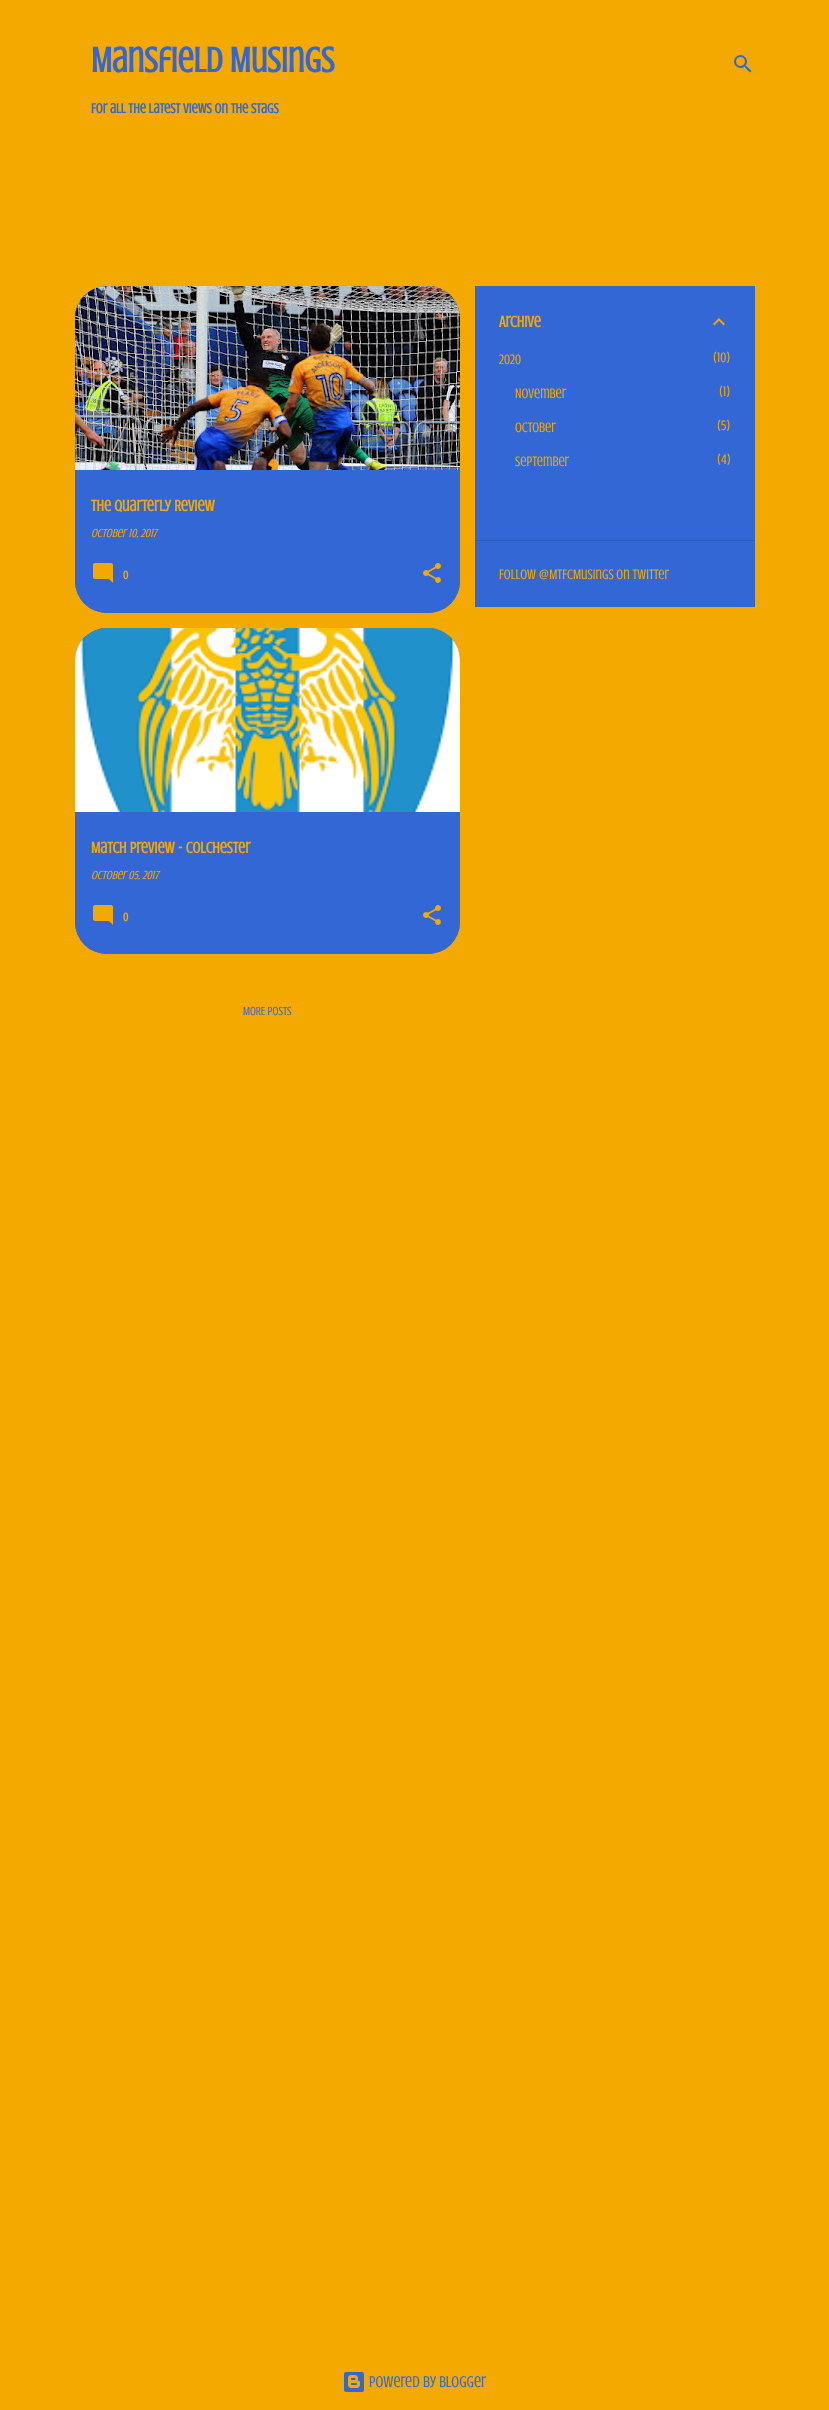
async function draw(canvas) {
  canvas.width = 829;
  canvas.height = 2410;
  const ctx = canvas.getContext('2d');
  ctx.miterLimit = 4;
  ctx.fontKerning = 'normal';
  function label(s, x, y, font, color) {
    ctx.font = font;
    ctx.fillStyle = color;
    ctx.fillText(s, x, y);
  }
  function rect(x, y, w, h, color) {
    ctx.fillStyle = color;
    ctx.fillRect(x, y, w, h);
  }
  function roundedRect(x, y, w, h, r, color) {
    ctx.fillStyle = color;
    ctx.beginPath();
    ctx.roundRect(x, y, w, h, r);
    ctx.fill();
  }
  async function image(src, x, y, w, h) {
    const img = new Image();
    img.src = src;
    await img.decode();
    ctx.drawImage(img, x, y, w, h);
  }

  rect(0, 0, 829, 2410, '#f4a900');
  label('Mansfield Musings', 91, 72, 'bold 36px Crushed', '#3367d6');
  label('For all the latest views on The Stags', 91, 113, 'bold 14px Crushed', '#3367d6');
  await image('assets/img1.png', 734, 55, 18, 18);
  rect(475, 286, 280, 321, '#3367d6');
  label('Archive', 499, 327, 'bold 16px Crushed', '#f4a900');
  await image('assets/img2.png', 713, 318, 12, 8);
  label('2020', 499, 364, '14px Crushed', '#f4a900');
  label('(10)', 713, 362, '14px Crushed', '#f4a900');
  label('November', 515, 398, '14px Crushed', '#f4a900');
  label('(1)', 719, 396, '14px Crushed', '#f4a900');
  label('October', 515, 432, '14px Crushed', '#f4a900');
  label('(5)', 717, 430, '14px Crushed', '#f4a900');
  label('September', 515, 466, '14px Crushed', '#f4a900');
  label('(4)', 717, 464, '14px Crushed', '#f4a900');
  rect(475, 540, 280, 1, '#2d5bbd');
  label('Follow @MTFCMusings on Twitter', 499, 579, '14px Crushed', '#f4a900');
  roundedRect(75, 286, 385, 327, 32, '#3367d6');
  await image('assets/img3.png', 75, 286, 385, 184);
  ctx.beginPath();
  ctx.roundRect(75, 470, 385, 143, [0, 0, 32, 32]);
  ctx.fill();
  label('The Quarterly Review', 91, 511, 'bold 16px Crushed', '#f4a900');
  label('October 10, 2017', 91, 537, 'italic 12px Crushed', '#f4a900');
  await image('assets/img4.png', 93, 563, 20, 20);
  label('0', 123, 579, 'bold 12px Crushed', '#f4a900');
  await image('assets/img5.png', 423, 563, 18, 20);
  roundedRect(75, 628, 385, 326, 32, '#3367d6');
  await image('assets/img6.png', 75, 628, 385, 184);
  ctx.beginPath();
  ctx.roundRect(75, 812, 385, 142, [0, 0, 32, 32]);
  ctx.fill();
  label('Match Preview - Colchester', 91, 853, 'bold 16px Crushed', '#f4a900');
  label('October 05, 2017', 91, 879, 'italic 12px Crushed', '#f4a900');
  await image('assets/img4.png', 93, 905, 20, 20);
  label('0', 123, 921, 'bold 12px Crushed', '#f4a900');
  await image('assets/img5.png', 423, 905, 18, 20);
  label('MORE POSTS', 243, 1015, '12px Crushed', '#3367d6');
  await image('assets/img7.png', 344, 2372, 20, 20);
  label('Powered by Blogger', 369, 2387, '16px Crushed', '#3367d6');
}

draw(document.querySelector('canvas'));
